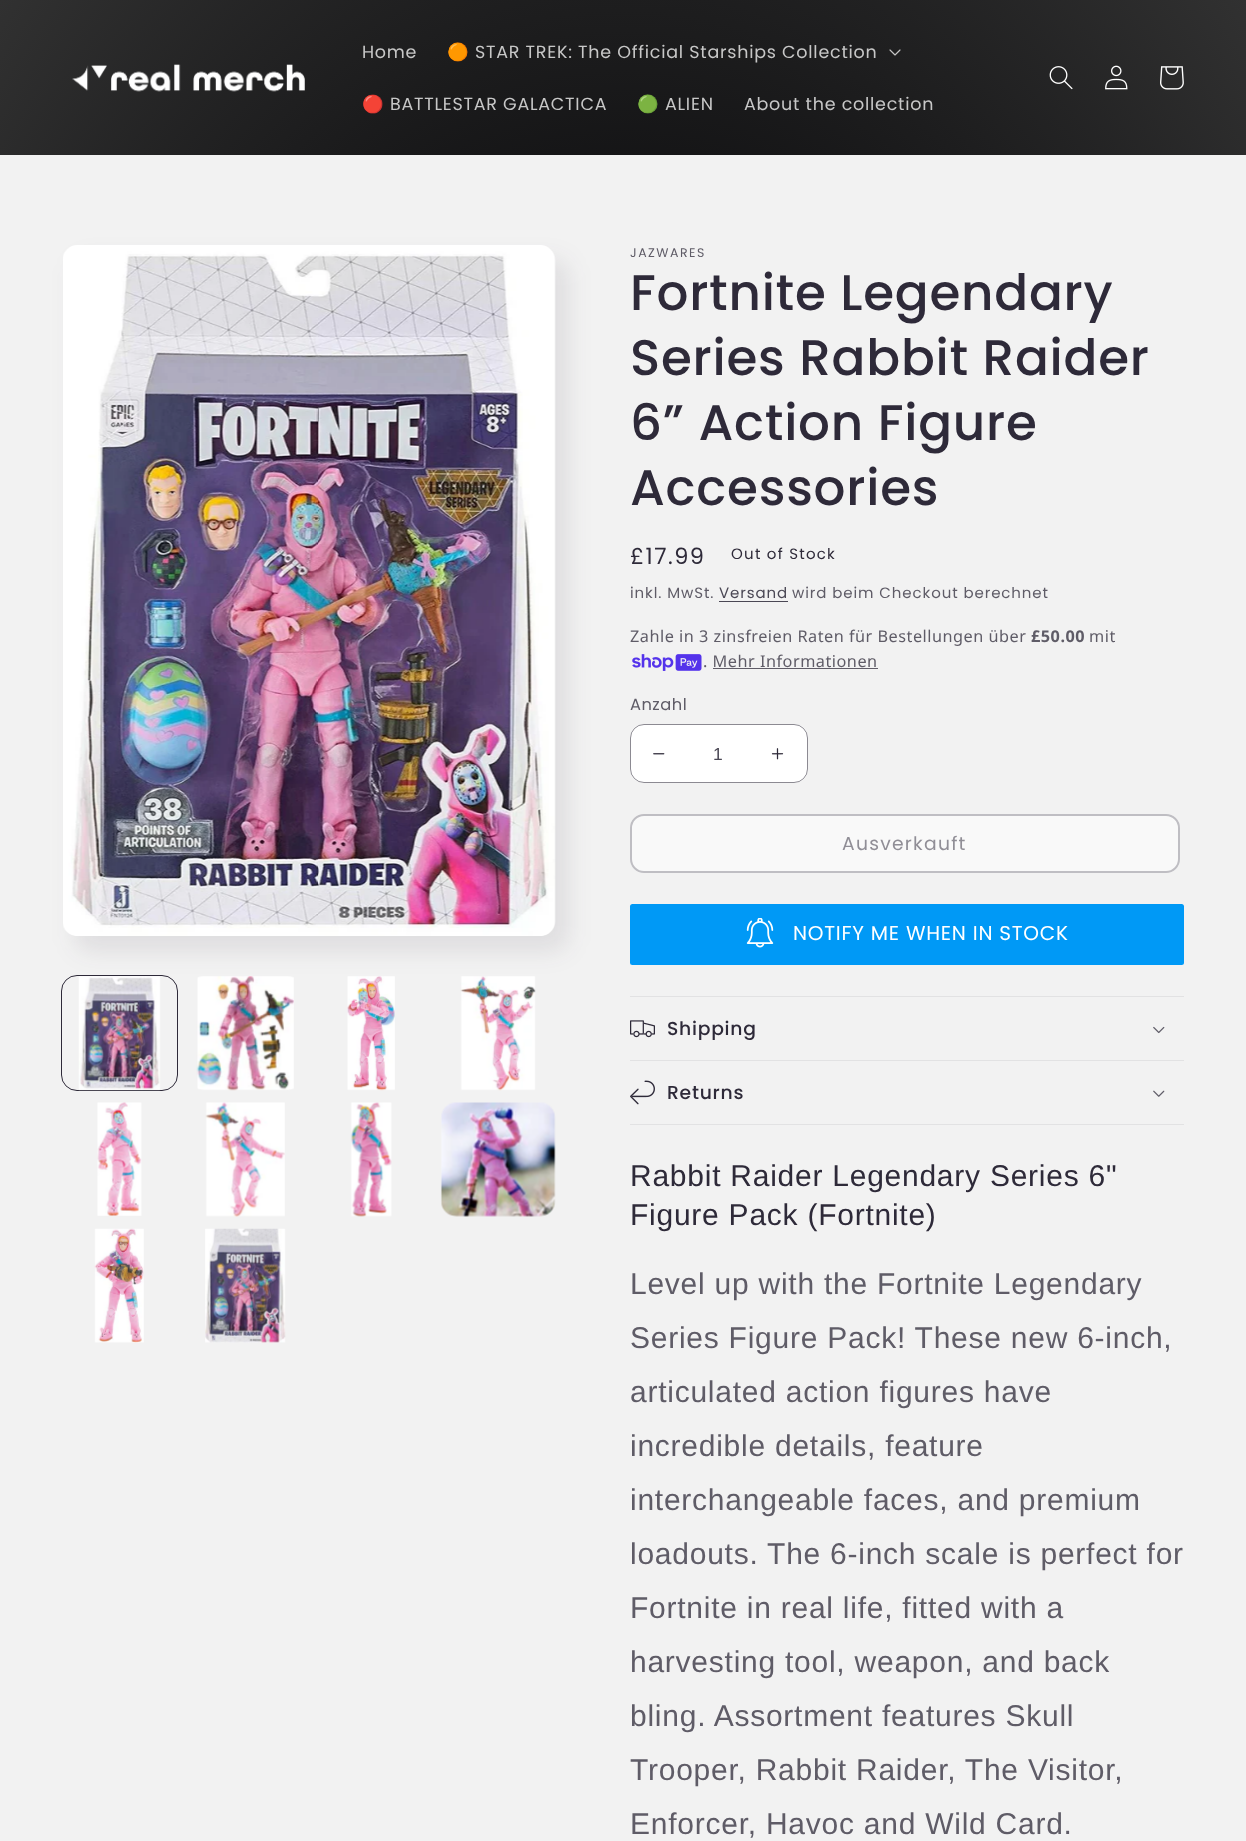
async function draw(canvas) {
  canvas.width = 1246;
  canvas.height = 1841;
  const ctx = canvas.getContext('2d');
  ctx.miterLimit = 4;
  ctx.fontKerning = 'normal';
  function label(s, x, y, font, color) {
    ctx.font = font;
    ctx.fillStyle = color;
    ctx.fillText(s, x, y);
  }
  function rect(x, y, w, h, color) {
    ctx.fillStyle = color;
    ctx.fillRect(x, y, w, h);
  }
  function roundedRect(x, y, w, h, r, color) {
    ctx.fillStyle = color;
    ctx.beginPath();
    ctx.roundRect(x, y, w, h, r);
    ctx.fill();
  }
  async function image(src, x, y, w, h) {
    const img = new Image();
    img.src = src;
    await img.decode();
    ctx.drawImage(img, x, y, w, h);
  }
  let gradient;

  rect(0, 0, 1246, 1841, '#f2f2f2');
  gradient = ctx.createRadialGradient(623, 623.2, 0, 623, 623.2, 881);
  gradient.addColorStop(0, '#000');
  gradient.addColorStop(0.4, '#09090b');
  gradient.addColorStop(1, '#313131');
  ctx.fillStyle = gradient;
  ctx.beginPath();
  ctx.rect(0, 0, 1246, 155);
  ctx.save();
  ctx.clip();
  ctx.scale(1, 1302 / 881);
  ctx.fillRect(0, 0, 1246, 1246);
  ctx.restore();
  await image('assets/img1.png', 72, 64, 233, 28);
  ctx.letterSpacing = '0.75px';
  label('Home', 362, 58, '17.5px Poppins', '#c7c7c7');
  label('🟠', 447, 58, '17.5px Noto Color Emoji', '#c7c7c7');
  label('STAR TREK: The Official Starships Collection', 475, 58, '17.5px Poppins', '#c7c7c7');
  await image('assets/img2.png', 889, 49, 12, 7);
  label('🔴', 362, 110, '17.5px Noto Color Emoji', '#c7c7c7');
  label('BATTLESTAR GALACTICA', 390, 110, '17.5px Poppins', '#c7c7c7');
  label('🟢', 637, 110, '17.5px Noto Color Emoji', '#c7c7c7');
  label('ALIEN', 665, 110, '17.5px Poppins', '#c7c7c7');
  label('About the collection', 744, 110, '17.5px Poppins', '#c7c7c7');
  await image('assets/img3.png', 1049, 66, 24, 24);
  await image('assets/img4.png', 1105, 65, 23, 25);
  await image('assets/img5.png', 1160, 66, 24, 24);
  ctx.fillStyle = '#2e2a391a';
  ctx.filter = 'blur(12.5px)';
  ctx.beginPath();
  ctx.roundRect(75, 260, 493, 691, 15);
  ctx.fill();
  ctx.filter = 'none';
  roundedRect(63, 245, 492, 691, 15, '#f2f2f2');
  await image('assets/img6.png', 63, 245, 493, 691);
  ctx.beginPath();
  ctx.roundRect(61.5, 975.5, 116, 115, 15.5);
  ctx.strokeStyle = '#2e2a39';
  ctx.stroke();
  await image('assets/img7.png', 78, 976, 83, 115);
  await image('assets/img8.png', 196, 976, 98, 115);
  await image('assets/img9.png', 347, 976, 48, 115);
  await image('assets/img10.png', 460, 976, 76, 115);
  await image('assets/img11.png', 97, 1102, 45, 114);
  await image('assets/img12.png', 205, 1102, 80, 115);
  await image('assets/img13.png', 350, 1102, 42, 115);
  await image('assets/img14.png', 440, 1102, 116, 115);
  await image('assets/img15.png', 94, 1228, 50, 115);
  await image('assets/img16.png', 205, 1228, 81, 115);
  ctx.letterSpacing = '1.5px';
  label('JAZWARES', 630, 257, '12.5px Poppins', '#5f5c67');
  ctx.letterSpacing = '0.75px';
  label('Fortnite Legendary', 630, 310, '500 50px Poppins', '#2e2a39');
  label('Series Rabbit Raider', 630, 375, '500 50px Poppins', '#2e2a39');
  label('6” Action Figure', 630, 440, '500 50px Poppins', '#2e2a39');
  label('Accessories', 630, 505, '500 50px Poppins', '#2e2a39');
  ctx.letterSpacing = '1.5px';
  label('£17.99', 630, 564, '22.5px Poppins', '#2e2a39');
  ctx.letterSpacing = '1.25px';
  label('Out of Stock', 731, 559, '15px Poppins', '#2e2a39');
  ctx.letterSpacing = '0.9px';
  label('inkl. MwSt.', 630, 598, '15px Poppins', '#5f5c67');
  label('Versand', 719, 598, '15px Poppins', '#4b4855');
  rect(719, 601, 69, 1, '#4b4855');
  label('wird beim Checkout berechnet', 792, 598, '15px Poppins', '#5f5c67');
  ctx.letterSpacing = '0.5px';
  label('Zahle in 3 zinsfreien Raten für Bestellungen über', 630, 642, '16.25px Noto Sans', '#5f5c67');
  label('£50.00', 1031, 642, 'bold 16.25px Noto Sans', '#5f5c67');
  label('mit', 1089, 642, '16.25px Noto Sans', '#5f5c67');
  await image('assets/img17.png', 632, 654, 70, 17);
  label('. Mehr Informationen', 703, 667, '16.25px Noto Sans', '#5f5c67');
  rect(713, 668, 165, 1, '#5f5c67');
  label('Anzahl', 630, 710, '16.25px Poppins', '#5f5c67');
  roundedRect(630, 724, 178, 59, 14, '#fff');
  await image('assets/img18.png', 653, 753, 12, 2);
  await image('assets/img19.png', 771, 748, 13, 12);
  ctx.beginPath();
  ctx.roundRect(630.5, 724.5, 177, 58, 13.5);
  ctx.strokeStyle = '#2e2a398c';
  ctx.stroke();
  ctx.letterSpacing = '0px';
  label('1', 713, 760, '17.5px Liberation Sans', '#4b4855');
  roundedRect(630, 814, 550, 59, 14, '#f9f9f9');
  ctx.beginPath();
  ctx.roundRect(631, 815, 548, 57, 13);
  ctx.strokeStyle = '#bfbec3';
  ctx.lineWidth = 2;
  ctx.stroke();
  ctx.letterSpacing = '1.25px';
  label('Ausverkauft', 842, 850, '18.75px Poppins', '#908e96');
  roundedRect(630, 904, 554, 61, 2.5, '#0099f6');
  await image('assets/img20.png', 746, 918, 28, 30);
  ctx.letterSpacing = '0.75px';
  label('NOTIFY ME WHEN IN STOCK', 793, 940, '20px Poppins', '#fff');
  rect(630, 996, 554, 1, '#e2e2e3');
  rect(630, 1060, 554, 1, '#e2e2e3');
  await image('assets/img21.png', 630, 1020, 25, 18);
  label('Shipping', 667, 1035, '500 18.75px Poppins', '#2e2a39');
  await image('assets/img22.png', 1153, 1026, 12, 8);
  rect(630, 1124, 554, 1, '#e2e2e3');
  await image('assets/img23.png', 630, 1080, 25, 25);
  label('Returns', 667, 1099, '500 18.75px Poppins', '#2e2a39');
  await image('assets/img24.png', 1153, 1090, 12, 7);
  label('Rabbit Raider Legendary Series 6"', 630, 1186, '30px Liberation Sans', '#2e2a39');
  label('Figure Pack (Fortnite)', 630, 1225, '30px Liberation Sans', '#2e2a39');
  label('Level up with the Fortnite Legendary', 630, 1294, '30px Liberation Sans', '#5f5c67');
  label('Series Figure Pack! These new 6-inch,', 630, 1348, '30px Liberation Sans', '#5f5c67');
  label('articulated action figures have', 630, 1402, '30px Liberation Sans', '#5f5c67');
  label('incredible details, feature', 630, 1456, '30px Liberation Sans', '#5f5c67');
  label('interchangeable faces, and premium', 630, 1510, '30px Liberation Sans', '#5f5c67');
  label('loadouts. The 6-inch scale is perfect for', 630, 1564, '30px Liberation Sans', '#5f5c67');
  label('Fortnite in real life, fitted with a', 630, 1618, '30px Liberation Sans', '#5f5c67');
  label('harvesting tool, weapon, and back', 630, 1672, '30px Liberation Sans', '#5f5c67');
  label('bling. Assortment features Skull', 630, 1726, '30px Liberation Sans', '#5f5c67');
  label('Trooper, Rabbit Raider, The Visitor,', 630, 1780, '30px Liberation Sans', '#5f5c67');
  label('Enforcer, Havoc and Wild Card.', 630, 1834, '30px Liberation Sans', '#5f5c67');
}

draw(document.querySelector('canvas'));
